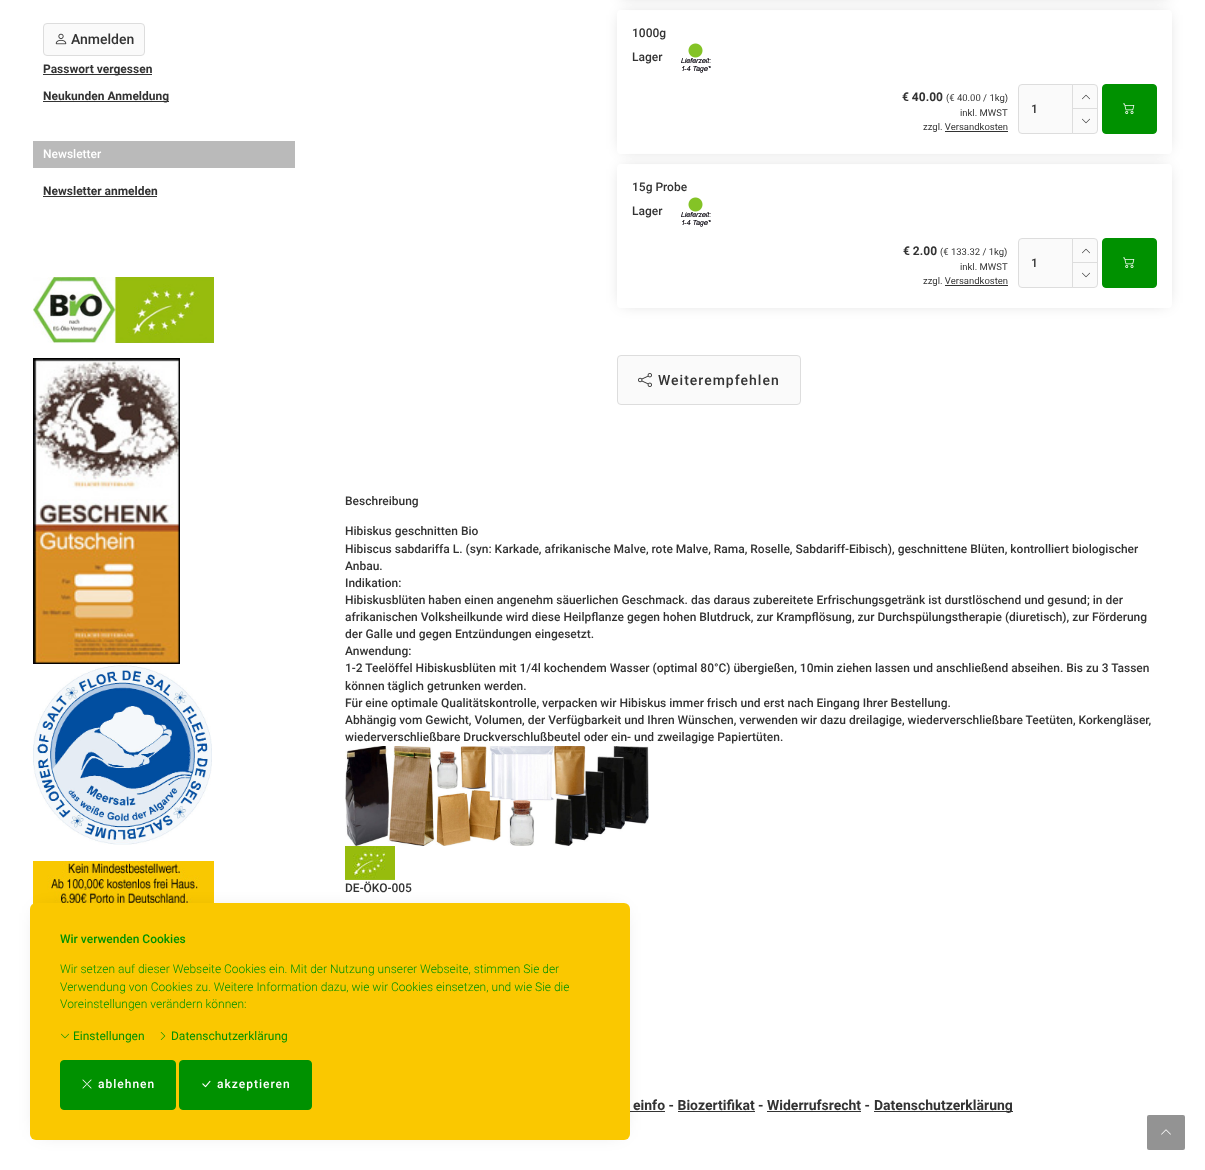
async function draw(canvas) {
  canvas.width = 1205;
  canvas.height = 1170;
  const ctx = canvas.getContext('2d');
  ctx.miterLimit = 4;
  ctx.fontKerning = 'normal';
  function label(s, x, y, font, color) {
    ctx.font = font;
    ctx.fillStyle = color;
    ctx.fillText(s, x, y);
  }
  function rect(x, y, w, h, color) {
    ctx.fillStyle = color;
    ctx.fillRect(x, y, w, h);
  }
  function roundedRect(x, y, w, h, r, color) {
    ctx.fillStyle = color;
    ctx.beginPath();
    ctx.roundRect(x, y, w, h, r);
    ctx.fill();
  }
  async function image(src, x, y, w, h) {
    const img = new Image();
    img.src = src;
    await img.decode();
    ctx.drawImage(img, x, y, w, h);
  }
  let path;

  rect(0, 0, 1205, 1170, '#fff');
  ctx.fillStyle = '#fafafa';
  ctx.beginPath();
  ctx.roundRect(43.5, 23.5, 101, 32, 3.5);
  ctx.fill();
  ctx.strokeStyle = '#ddd';
  ctx.stroke();
  await image('assets/img1.png', 55, 33, 12, 12);
  label('Anmelden', 71, 44, '500 14px Roboto', '#333');
  rect(43, 74, 109, 1, '#333');
  label('Passwort vergessen', 43, 73, 'bold 12px Roboto', '#333');
  rect(43, 101, 126, 1, '#333');
  label('Neukunden Anmeldung', 43, 100, 'bold 12px Roboto', '#333');
  rect(33, 141, 262, 27, '#bababa');
  label('Newsletter', 43, 158, '500 12px Roboto', '#fff');
  label('Newsletter anmelden', 43, 195, 'bold 12px Roboto', '#333');
  rect(43, 196, 114, 1, '#333');
  await image('assets/img2.png', 33, 277, 181, 66);
  await image('assets/img3.png', 33, 358, 147, 306);
  await image('assets/img4.png', 33, 664, 179, 181);
  await image('assets/img5.png', 33, 861, 181, 43);
  ctx.fillStyle = '#00000033';
  ctx.filter = 'blur(7.5px)';
  ctx.beginPath();
  ctx.rect(622, -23, 545, 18);
  ctx.fill();
  ctx.filter = 'none';
  ctx.save();
  path = new Path2D('M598 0H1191V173H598ZM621 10H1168C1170 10 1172 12 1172 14V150C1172 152 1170 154 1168 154H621C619 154 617 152 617 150V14C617 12 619 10 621 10Z');
  ctx.clip(path, 'evenodd');
  ctx.filter = 'blur(7.5px)';
  ctx.beginPath();
  ctx.rect(622, 15, 545, 134);
  ctx.fill();
  ctx.filter = 'none';
  ctx.restore();
  label('1000g', 632, 37, '500 12px Roboto', '#333');
  label('Lager', 632, 61, '500 12px Roboto', '#333');
  await image('assets/img6.png', 681, 43, 30, 30);
  label('€ 40.00', 902, 101, 'bold 12px Roboto', '#333');
  label('(€ 40.00 / 1kg)', 946, 101, '9.5px Roboto', '#333');
  label('inkl. MWST', 960, 116, '9.5px Roboto', '#333');
  label('zzgl. Versandkosten', 923, 130, '9.5px Roboto', '#333');
  rect(945, 131, 63, 1, '#333');
  ctx.fillStyle = '#fafafa';
  ctx.beginPath();
  ctx.roundRect(1072.5, 84.5, 25, 25, [0, 3.5, 0, 0]);
  ctx.fill();
  ctx.stroke();
  ctx.beginPath();
  ctx.roundRect(1072.5, 108.5, 25, 25, [0, 0, 3.5, 0]);
  ctx.fill();
  ctx.stroke();
  ctx.beginPath();
  ctx.roundRect(1018.5, 84.5, 54, 49, [3.5, 0, 0, 3.5]);
  ctx.fill();
  ctx.stroke();
  label('1', 1031, 113, '500 12px Roboto', '#333');
  await image('assets/img7.png', 1082, 94, 8, 6);
  await image('assets/img8.png', 1082, 118, 8, 6);
  ctx.fillStyle = '#009100';
  ctx.beginPath();
  ctx.roundRect(1102.5, 84.5, 54, 49, 3.5);
  ctx.fill();
  ctx.strokeStyle = '#009100';
  ctx.stroke();
  await image('assets/img9.png', 1123, 103, 12, 11);
  ctx.save();
  path = new Path2D('M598 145H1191V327H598ZM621 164H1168C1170 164 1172 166 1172 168V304C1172 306 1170 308 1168 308H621C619 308 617 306 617 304V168C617 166 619 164 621 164Z');
  ctx.clip(path, 'evenodd');
  ctx.fillStyle = '#00000033';
  ctx.filter = 'blur(7.5px)';
  ctx.beginPath();
  ctx.rect(622, 169, 545, 134);
  ctx.fill();
  ctx.filter = 'none';
  ctx.restore();
  label('15g Probe', 632, 191, '500 12px Roboto', '#333');
  label('Lager', 632, 215, '500 12px Roboto', '#333');
  await image('assets/img6.png', 681, 197, 30, 30);
  label('€ 2.00', 903, 255, 'bold 12px Roboto', '#333');
  label('(€ 133.32 / 1kg)', 940, 255, '9.5px Roboto', '#333');
  label('inkl. MWST', 960, 270, '9.5px Roboto', '#333');
  label('zzgl. Versandkosten', 923, 284, '9.5px Roboto', '#333');
  rect(945, 285, 63, 1, '#333');
  ctx.fillStyle = '#fafafa';
  ctx.beginPath();
  ctx.roundRect(1072.5, 238.5, 25, 25, [0, 3.5, 0, 0]);
  ctx.fill();
  ctx.strokeStyle = '#ddd';
  ctx.stroke();
  ctx.beginPath();
  ctx.roundRect(1072.5, 262.5, 25, 25, [0, 0, 3.5, 0]);
  ctx.fill();
  ctx.stroke();
  ctx.beginPath();
  ctx.roundRect(1018.5, 238.5, 54, 49, [3.5, 0, 0, 3.5]);
  ctx.fill();
  ctx.stroke();
  label('1', 1031, 267, '500 12px Roboto', '#333');
  await image('assets/img7.png', 1082, 248, 8, 6);
  await image('assets/img8.png', 1082, 272, 8, 6);
  ctx.fillStyle = '#009100';
  ctx.beginPath();
  ctx.roundRect(1102.5, 238.5, 54, 49, 3.5);
  ctx.fill();
  ctx.strokeStyle = '#009100';
  ctx.stroke();
  await image('assets/img9.png', 1123, 257, 12, 11);
  ctx.fillStyle = '#fafafa';
  ctx.beginPath();
  ctx.roundRect(617.5, 355.5, 183, 49, 3.5);
  ctx.fill();
  ctx.strokeStyle = '#ddd';
  ctx.stroke();
  await image('assets/img10.png', 638, 373, 14, 14);
  ctx.letterSpacing = '1px';
  label('Weiterempfehlen', 658, 385, '500 14px Roboto', '#333');
  ctx.letterSpacing = '0px';
  label('Beschreibung', 345, 505, '500 12px Roboto', '#333');
  label('Hibiskus geschnitten Bio', 345, 535, '500 12px Roboto', '#333');
  label('Hibiscus sabdariffa L. (syn: Karkade, afrikanische Malve, rote Malve, Rama, Roselle, Sabdariff-Eibisch), geschnittene Blüten, kontrolliert biologischer', 345, 553, '500 12px Roboto', '#333');
  label('Anbau.', 345, 570, '500 12px Roboto', '#333');
  label('Indikation:', 345, 587, '500 12px Roboto', '#333');
  label('Hibiskusblüten haben einen angenehm säuerlichen Geschmack. das daraus zubereitete Erfrischungsgetränk ist durstlöschend und gesund; in der', 345, 604, '500 12px Roboto', '#333');
  label('afrikanischen Volksheilkunde wird diese Heilpflanze gegen hohen Blutdruck, zur Krampflösung, zur Durchspülungstherapie (diuretisch), zur Förderung', 345, 621, '500 12px Roboto', '#333');
  label('der Galle und gegen Entzündungen eingesetzt.', 345, 638, '500 12px Roboto', '#333');
  label('Anwendung:', 345, 655, '500 12px Roboto', '#333');
  label('1-2 Teelöffel Hibiskusblüten mit 1/4l kochendem Wasser (optimal 80°C) übergießen, 10min ziehen lassen und anschließend abseihen. Bis zu 3 Tassen', 345, 672, '500 12px Roboto', '#333');
  label('können täglich getrunken werden.', 345, 690, '500 12px Roboto', '#333');
  label('Für eine optimale Qualitätskontrolle, verpacken wir Hibiskus immer frisch und erst nach Eingang Ihrer Bestellung.', 345, 707, '500 12px Roboto', '#333');
  label('Abhängig vom Gewicht, Volumen, der Verfügbarkeit und Ihren Wünschen, verwenden wir dazu dreilagige, wiederverschließbare Teetüten, Korkengläser,', 345, 724, '500 12px Roboto', '#333');
  label('wiederverschließbare Druckverschlußbeutel oder ein- und zweilagige Papiertüten.', 345, 741, '500 12px Roboto', '#333');
  await image('assets/img11.png', 345, 746, 304, 100);
  await image('assets/img12.png', 345, 846, 50, 34);
  label('DE-ÖKO-005', 345, 892, '500 12px Roboto', '#333');
  rect(630, 1111, 35, 1, '#333');
  ctx.fillStyle = '#00000033';
  ctx.filter = 'blur(10px)';
  ctx.beginPath();
  ctx.rect(40, 913, 580, 217);
  ctx.fill();
  ctx.filter = 'none';
  roundedRect(30, 903, 600, 237, 6, '#fac800');
  label('Wir verwenden Cookies', 60, 943, '500 12px Roboto', '#009100');
  label('Wir setzen auf dieser Webseite Cookies ein. Mit der Nutzung unserer Webseite, stimmen Sie der', 60, 973, '300 12px Roboto', '#009100');
  label('Verwendung von Cookies zu. Weitere Information dazu, wie wir Cookies einsetzen, und wie Sie die', 60, 991, '300 12px Roboto', '#009100');
  label('Voreinstellungen verändern können:', 60, 1008, '300 12px Roboto', '#009100');
  await image('assets/img13.png', 61, 1033, 8, 6);
  label('Einstellungen', 73, 1040, '12px Roboto', '#009100');
  await image('assets/img14.png', 160, 1032, 6, 8);
  label('Datenschutzerklärung', 171, 1040, '12px Roboto', '#009100');
  ctx.beginPath();
  ctx.roundRect(60.5, 1060.5, 115, 49, 3.5);
  ctx.fill();
  ctx.strokeStyle = '#009100';
  ctx.stroke();
  await image('assets/img15.png', 82, 1079, 10, 10);
  ctx.letterSpacing = '1px';
  label('ablehnen', 98, 1088, '500 12px Roboto', '#fff');
  ctx.fillStyle = '#009100';
  ctx.beginPath();
  ctx.roundRect(179.5, 1060.5, 132, 49, 3.5);
  ctx.fill();
  ctx.stroke();
  await image('assets/img16.png', 202, 1080, 9, 8);
  label('akzeptieren', 217, 1088, '500 12px Roboto', '#fff');
  roundedRect(1147, 1115, 38, 35, 2, '#939393');
  await image('assets/img17.png', 1161, 1129, 10, 6);
  ctx.letterSpacing = '0px';
  label('einfo - Biozertifikat - Widerrufsrecht -', 633, 1110, 'bold 14px Roboto', '#333');
  rect(874, 1111, 139, 1, '#333');
  label('Datenschutzerklärung', 874, 1110, 'bold 14px Roboto', '#333');
  rect(678, 1111, 77, 1, '#333');
  rect(767, 1111, 94, 1, '#333');
}

draw(document.querySelector('canvas'));
